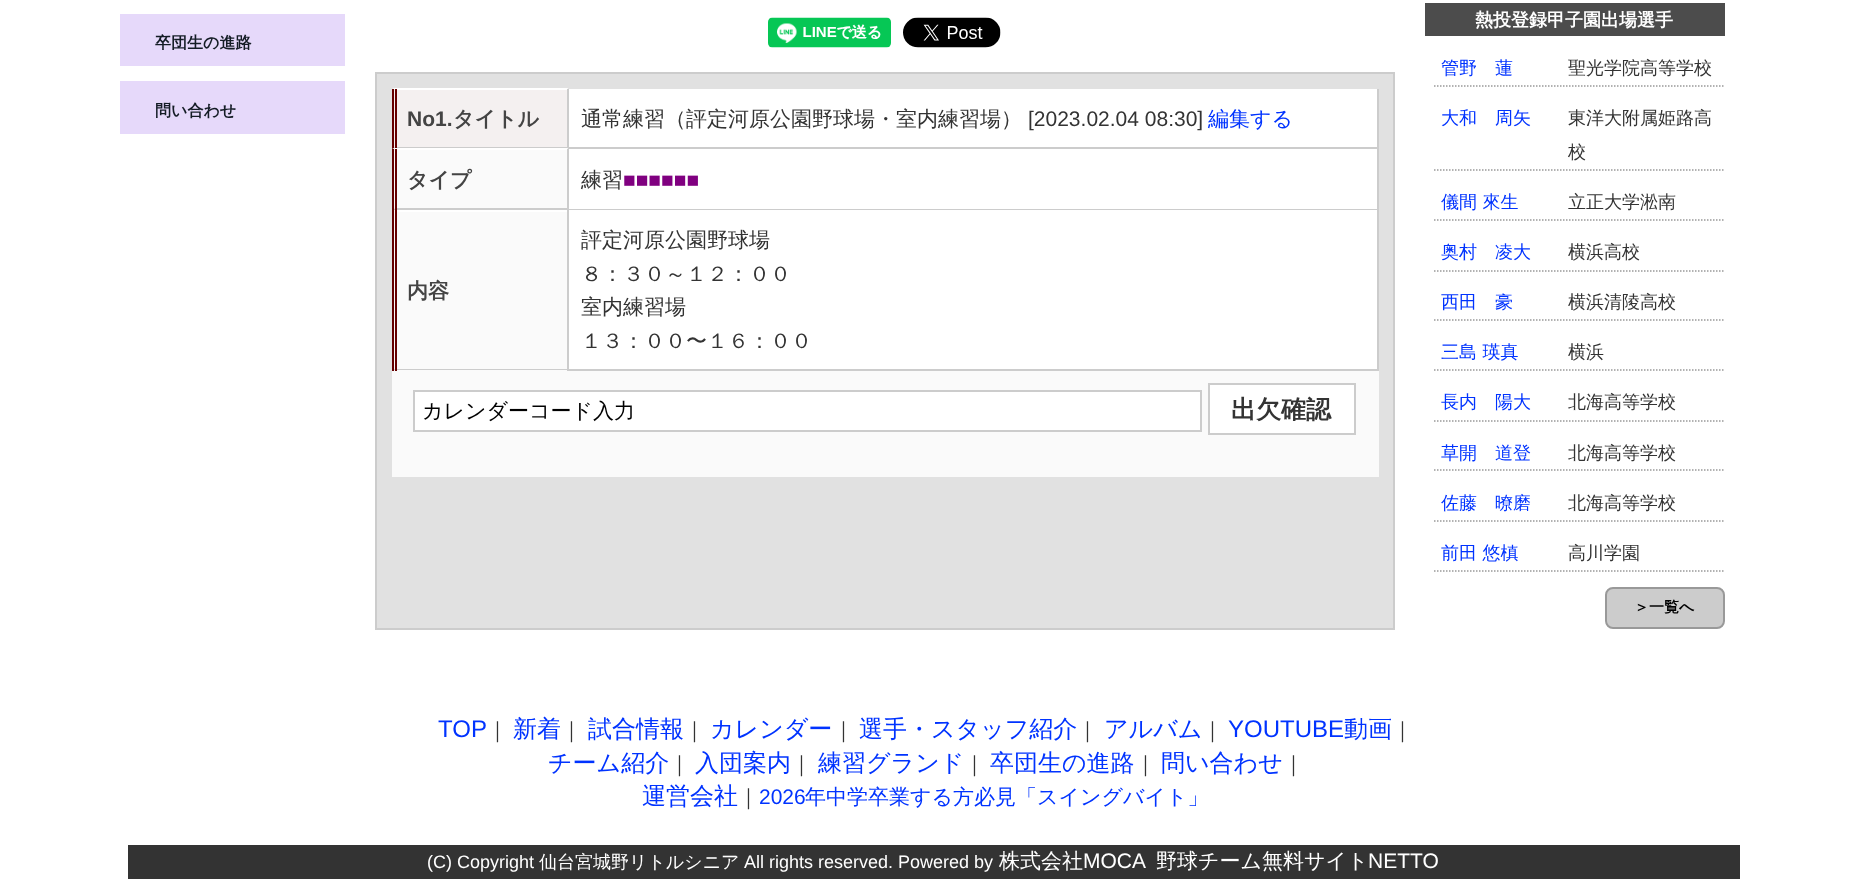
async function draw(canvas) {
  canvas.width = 1850;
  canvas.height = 886;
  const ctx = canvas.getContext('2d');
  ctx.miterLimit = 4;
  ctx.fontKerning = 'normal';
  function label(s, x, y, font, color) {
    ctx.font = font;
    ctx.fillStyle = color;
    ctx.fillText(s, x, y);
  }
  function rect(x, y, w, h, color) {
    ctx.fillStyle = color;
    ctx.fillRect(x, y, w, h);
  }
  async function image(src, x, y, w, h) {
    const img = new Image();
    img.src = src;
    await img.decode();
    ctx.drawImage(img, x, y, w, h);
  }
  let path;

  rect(0, 0, 1850, 886, '#fff');
  rect(120, 14, 225, 52, '#e6d9fa');
  label('卒団生の進路', 155, 48, 'bold 16px WenQuanYi Zen Hei', '#141c25');
  rect(120, 81, 225, 53, '#e6d9fa');
  label('問い合わせ', 155, 116, 'bold 16px WenQuanYi Zen Hei', '#141c25');
  rect(1425, 3, 300, 33, '#4c4c4c');
  label('熱投登録甲子園出場選手', 1475, 26, 'bold 18px WenQuanYi Zen Hei', '#fff');
  path = new Path2D('M1434 86H1723.5');
  ctx.strokeStyle = '#999';
  ctx.lineWidth = 1.5;
  ctx.setLineDash([1.5, 1.5]);
  ctx.stroke(path);
  label('管野　蓮', 1441, 74, '500 18px WenQuanYi Zen Hei', '#03f');
  label('聖光学院高等学校', 1568, 74, '500 18px WenQuanYi Zen Hei', '#333');
  path = new Path2D('M1434 170H1723.5');
  ctx.stroke(path);
  label('大和　周矢', 1441, 124, '500 18px WenQuanYi Zen Hei', '#03f');
  label('東洋大附属姫路高', 1568, 124, '500 18px WenQuanYi Zen Hei', '#333');
  label('校', 1568, 158, '500 18px WenQuanYi Zen Hei', '#333');
  path = new Path2D('M1434 220H1723.5');
  ctx.stroke(path);
  label('儀間 來生', 1441, 208, '500 18px WenQuanYi Zen Hei', '#03f');
  label('立正大学淞南', 1568, 208, '500 18px WenQuanYi Zen Hei', '#333');
  path = new Path2D('M1434 271H1723.5');
  ctx.stroke(path);
  label('奥村　凌大', 1441, 258, '500 18px WenQuanYi Zen Hei', '#03f');
  label('横浜高校', 1568, 258, '500 18px WenQuanYi Zen Hei', '#333');
  path = new Path2D('M1434 320H1723.5');
  ctx.stroke(path);
  label('西田　豪', 1441, 308, '500 18px WenQuanYi Zen Hei', '#03f');
  label('横浜清陵高校', 1568, 308, '500 18px WenQuanYi Zen Hei', '#333');
  path = new Path2D('M1434 370H1723.5');
  ctx.stroke(path);
  label('三島 瑛真', 1441, 358, '500 18px WenQuanYi Zen Hei', '#03f');
  label('横浜', 1568, 358, '500 18px WenQuanYi Zen Hei', '#333');
  path = new Path2D('M1434 421H1723.5');
  ctx.stroke(path);
  label('長内　陽大', 1441, 408, '500 18px WenQuanYi Zen Hei', '#03f');
  label('北海高等学校', 1568, 408, '500 18px WenQuanYi Zen Hei', '#333');
  path = new Path2D('M1434 470H1723.5');
  ctx.stroke(path);
  label('草開　道登', 1441, 459, '500 18px WenQuanYi Zen Hei', '#03f');
  label('北海高等学校', 1568, 459, '500 18px WenQuanYi Zen Hei', '#333');
  path = new Path2D('M1434 521H1723.5');
  ctx.stroke(path);
  label('佐藤　暸磨', 1441, 509, '500 18px WenQuanYi Zen Hei', '#03f');
  label('北海高等学校', 1568, 509, '500 18px WenQuanYi Zen Hei', '#333');
  path = new Path2D('M1434 571H1723.5');
  ctx.stroke(path);
  label('前田 悠槙', 1441, 559, '500 18px WenQuanYi Zen Hei', '#03f');
  label('高川学園', 1568, 559, '500 18px WenQuanYi Zen Hei', '#333');
  ctx.fillStyle = '#ccc';
  ctx.beginPath();
  ctx.roundRect(1606, 588, 118, 40, 7);
  ctx.fill();
  ctx.lineWidth = 2;
  ctx.setLineDash([]);
  ctx.stroke();
  label('＞一覧へ', 1634, 612, 'bold 15px WenQuanYi Zen Hei', '#000');
  await image('assets/img1.png', 768, 17, 123, 31);
  await image('assets/img2.png', 903, 17, 98, 31);
  ctx.fillStyle = '#e1e1e1';
  ctx.beginPath();
  ctx.rect(376, 73, 1018, 556);
  ctx.fill();
  ctx.strokeStyle = '#ccc';
  ctx.stroke();
  rect(394, 89, 173, 59, '#f4f0f0');
  ctx.fillStyle = '#fff';
  path = new Path2D('M392 88H568L567 90H396Z');
  ctx.fill(path);
  rect(567, 89, 2, 60, '#ccc');
  path = new Path2D('M568 148H392L396 147H567Z');
  ctx.fill(path);
  rect(392, 89, 2, 60, '#600');
  rect(395, 89, 2, 60, '#600');
  label('No1.', 407, 126, 'bold 21px Liberation Sans', '#444');
  label('タイトル', 453, 126, 'bold 21px WenQuanYi Zen Hei', '#444');
  rect(569, 89, 808, 58, '#fff');
  rect(1377, 89, 2, 282, '#ccc');
  rect(569, 147, 810, 2, '#ccc');
  label('通常練習（評定河原公園野球場・室内練習場）', 581, 126, '500 21px WenQuanYi Zen Hei', '#333');
  label('[2023.02.04 08:30]', 1028, 126, '21px Liberation Sans', '#333');
  label('編集する', 1208, 126, '500 21px WenQuanYi Zen Hei', '#03f');
  rect(394, 149, 173, 60, '#fafafa');
  ctx.fillStyle = '#fff';
  path = new Path2D('M392 148H568L567 150H396Z');
  ctx.fill(path);
  rect(567, 149, 2, 61, '#ccc');
  path = new Path2D('M568 210H392L396 208H567Z');
  ctx.fill(path);
  rect(392, 149, 2, 61, '#600');
  rect(395, 149, 2, 61, '#600');
  label('タイプ', 407, 187, 'bold 21px WenQuanYi Zen Hei', '#444');
  rect(569, 149, 808, 60, '#fff');
  rect(569, 209, 810, 1, '#ccc');
  label('練習', 581, 187, '500 21px WenQuanYi Zen Hei', '#333');
  label('■■■■■■', 623, 187, '21px Liberation Sans', '#800080');
  rect(394, 211, 173, 160, '#fafafa');
  ctx.fillStyle = '#fff';
  path = new Path2D('M392 210H568L567 212H396Z');
  ctx.fill(path);
  rect(567, 210, 2, 161, '#ccc');
  path = new Path2D('M568 370H392L396 369H567Z');
  ctx.fill(path);
  rect(392, 210, 2, 161, '#600');
  rect(395, 210, 2, 161, '#600');
  label('内容', 407, 298, 'bold 21px WenQuanYi Zen Hei', '#444');
  rect(569, 210, 808, 159, '#fff');
  rect(569, 369, 810, 2, '#ccc');
  label('評定河原公園野球場', 581, 247, '500 21px WenQuanYi Zen Hei', '#333');
  label('８：３０～１２：００', 581, 281, '500 21px WenQuanYi Zen Hei', '#333');
  label('室内練習場', 581, 314, '500 21px WenQuanYi Zen Hei', '#333');
  label('１３：００〜１６：００', 581, 348, '500 21px WenQuanYi Zen Hei', '#333');
  rect(392, 371, 987, 106, '#fafafa');
  ctx.fillStyle = '#fff';
  ctx.beginPath();
  ctx.rect(414, 391, 787, 40);
  ctx.fill();
  ctx.stroke();
  label('カレンダーコード入力', 422, 418, '500 21px WenQuanYi Zen Hei', '#000');
  ctx.fillStyle = '#fff';
  ctx.beginPath();
  ctx.rect(1209, 384, 146, 50);
  ctx.fill();
  ctx.stroke();
  label('出欠確認', 1231, 418, 'bold 25px WenQuanYi Zen Hei', '#333');
  label('TOP', 438, 737, '24px Liberation Sans', '#03f');
  label('｜', 487, 737, '500 21px WenQuanYi Zen Hei', '#333');
  label('新着', 513, 737, '500 24px WenQuanYi Zen Hei', '#03f');
  label('｜', 561, 737, '500 21px WenQuanYi Zen Hei', '#333');
  label('試合情報', 588, 737, '500 24px WenQuanYi Zen Hei', '#03f');
  label('｜', 684, 737, '500 21px WenQuanYi Zen Hei', '#333');
  label('カレンダー', 710, 737, '500 24px WenQuanYi Zen Hei', '#03f');
  label('｜', 833, 737, '500 21px WenQuanYi Zen Hei', '#333');
  label('選手・スタッフ紹介', 859, 737, '500 24px WenQuanYi Zen Hei', '#03f');
  label('｜', 1077, 737, '500 21px WenQuanYi Zen Hei', '#333');
  label('アルバム', 1104, 737, '500 24px WenQuanYi Zen Hei', '#03f');
  label('｜', 1202, 737, '500 21px WenQuanYi Zen Hei', '#333');
  label('YOUTUBE', 1228, 737, '24px Liberation Sans', '#03f');
  label('動画', 1344, 737, '500 24px WenQuanYi Zen Hei', '#03f');
  label('｜', 1392, 737, '500 21px WenQuanYi Zen Hei', '#333');
  label('チーム紹介', 548, 771, '500 24px WenQuanYi Zen Hei', '#03f');
  label('｜', 669, 771, '500 21px WenQuanYi Zen Hei', '#333');
  label('入団案内', 695, 771, '500 24px WenQuanYi Zen Hei', '#03f');
  label('｜', 791, 771, '500 21px WenQuanYi Zen Hei', '#333');
  label('練習グランド', 818, 771, '500 24px WenQuanYi Zen Hei', '#03f');
  label('｜', 964, 771, '500 21px WenQuanYi Zen Hei', '#333');
  label('卒団生の進路', 990, 771, '500 24px WenQuanYi Zen Hei', '#03f');
  label('｜', 1135, 771, '500 21px WenQuanYi Zen Hei', '#333');
  label('問い合わせ', 1161, 771, '500 24px WenQuanYi Zen Hei', '#03f');
  label('｜', 1283, 771, '500 21px WenQuanYi Zen Hei', '#333');
  label('運営会社', 642, 804, '500 24px WenQuanYi Zen Hei', '#03f');
  label('｜', 738, 804, '500 21px WenQuanYi Zen Hei', '#333');
  label('2026', 759, 804, '21px Liberation Sans', '#03f');
  label('年中学卒業する方必見「スイングバイト」', 805, 804, '500 21px WenQuanYi Zen Hei', '#03f');
  rect(128, 845, 1612, 34, '#333');
  label('(C) Copyright', 427, 868, '18px Liberation Sans', '#fff');
  label('仙台宮城野リトルシニア', 539, 868, '500 18px WenQuanYi Zen Hei', '#fff');
  label('All rights reserved. Powered by', 744, 868, '18px Liberation Sans', '#fff');
  label('株式会社', 999, 868, '500 21px WenQuanYi Zen Hei', '#fff');
  label('MOCA', 1083, 868, '21px Liberation Sans', '#fff');
  label('野球チーム無料サイト', 1156, 868, '500 21px WenQuanYi Zen Hei', '#fff');
  label('NETTO', 1368, 868, '21px Liberation Sans', '#fff');
}

draw(document.querySelector('canvas'));
